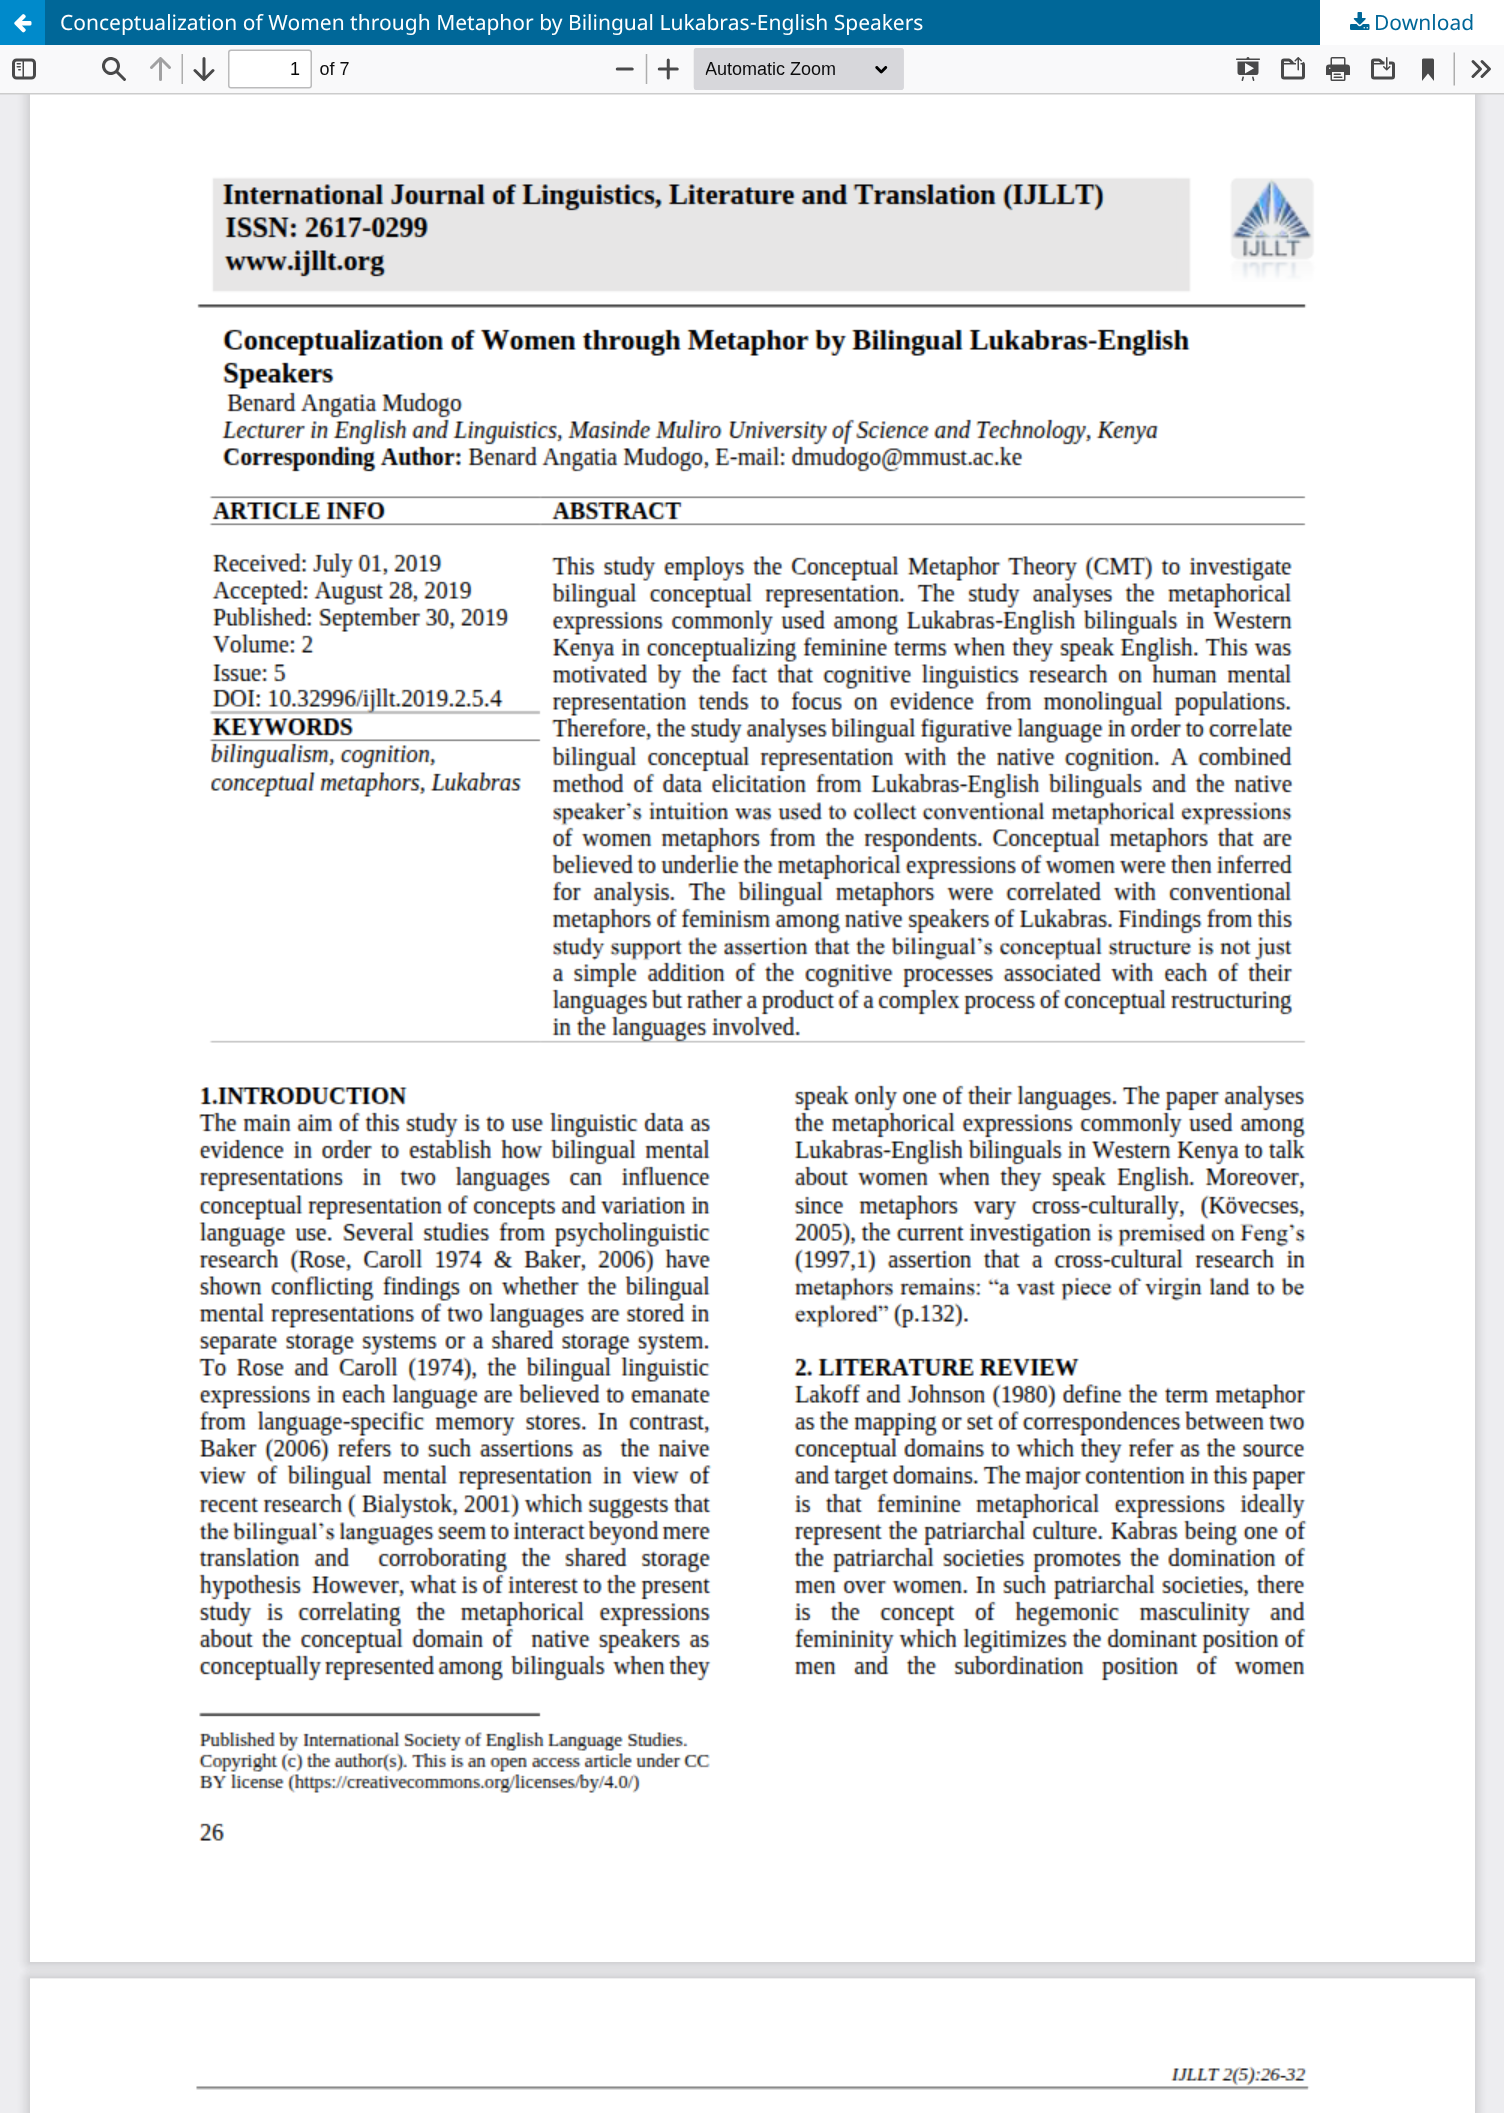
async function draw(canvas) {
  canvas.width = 1504;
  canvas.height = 2113;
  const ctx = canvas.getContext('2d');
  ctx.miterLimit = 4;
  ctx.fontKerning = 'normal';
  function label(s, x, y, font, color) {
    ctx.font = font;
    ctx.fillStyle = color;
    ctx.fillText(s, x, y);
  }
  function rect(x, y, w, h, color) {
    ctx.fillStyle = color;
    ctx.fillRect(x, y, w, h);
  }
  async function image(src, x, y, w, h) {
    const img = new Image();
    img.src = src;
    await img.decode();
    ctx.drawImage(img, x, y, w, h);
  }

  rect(0, 0, 1504, 2113, '#fff');
  rect(45, 0, 1275, 45, '#006798');
  rect(0, 0, 45, 45, '#008acb');
  await image('assets/img1.png', 14, 14, 18, 19);
  label('Conceptualization of Women through Metaphor by Bilingual Lukabras-English Speakers', 60, 30, '21px Noto Sans', '#fff');
  await image('assets/img2.png', 1350, 12, 20, 18);
  label('Download', 1374, 30, '21px Noto Sans', '#006798');
  await image('assets/img3.png', 0, 45, 1504, 2068);
}

draw(document.querySelector('canvas'));
